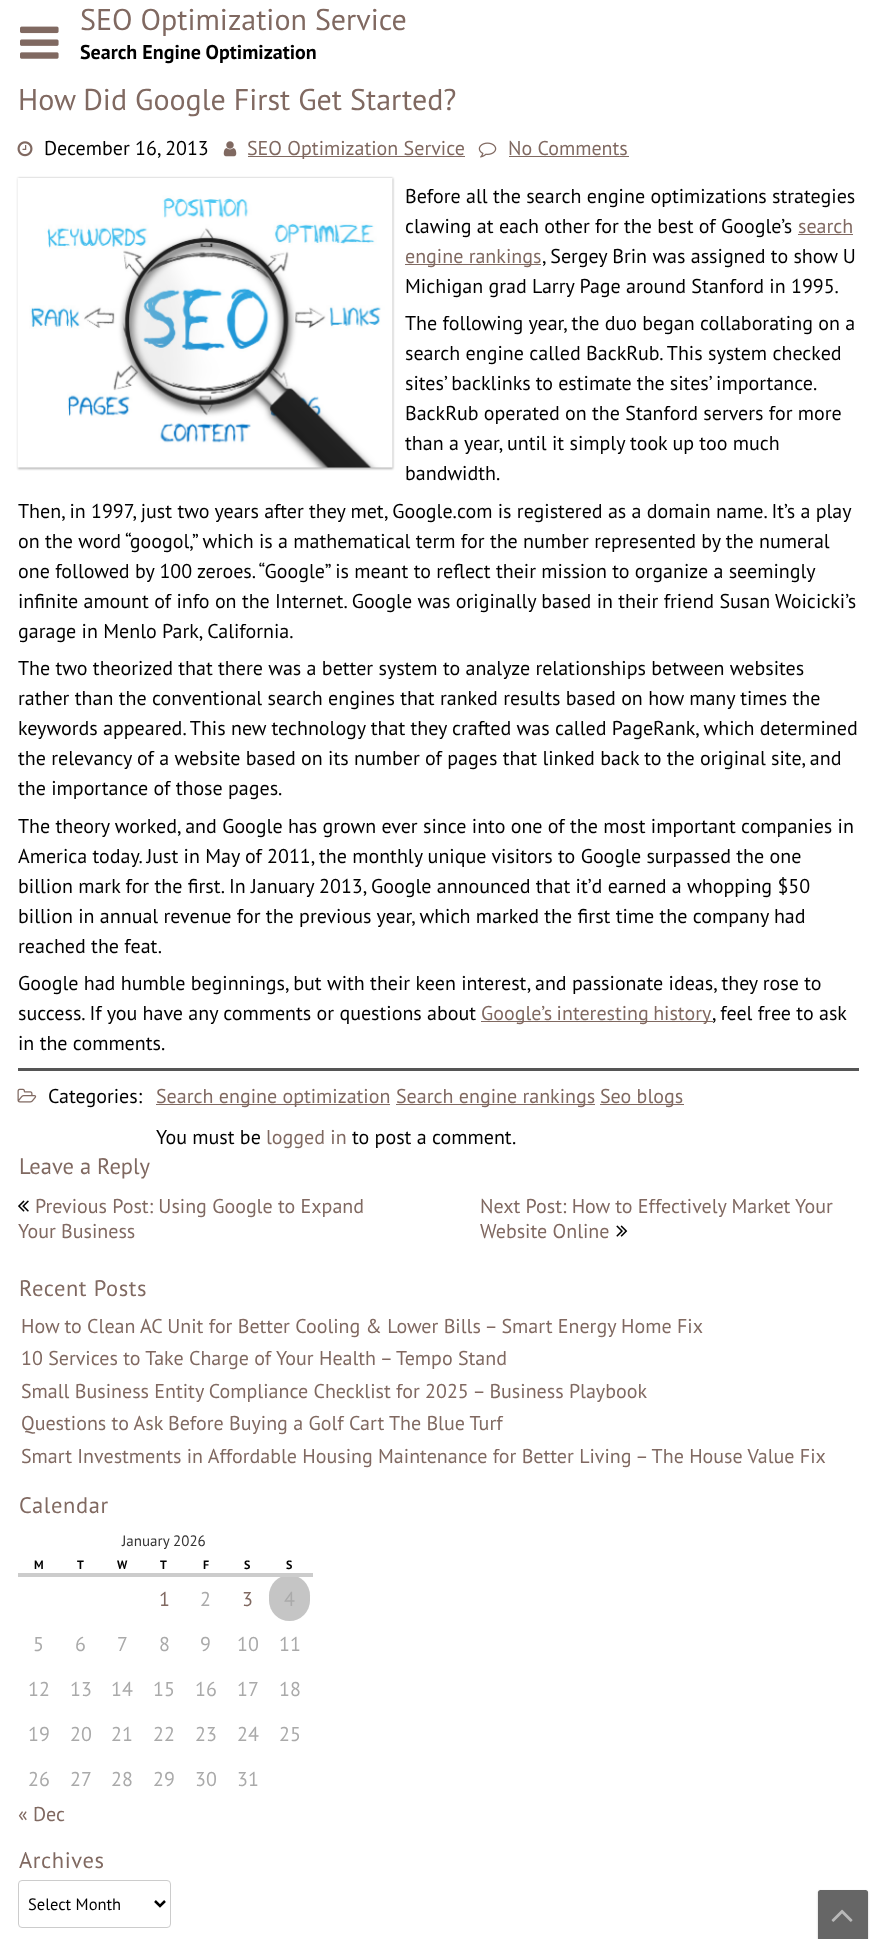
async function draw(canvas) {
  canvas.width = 884;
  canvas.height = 1939;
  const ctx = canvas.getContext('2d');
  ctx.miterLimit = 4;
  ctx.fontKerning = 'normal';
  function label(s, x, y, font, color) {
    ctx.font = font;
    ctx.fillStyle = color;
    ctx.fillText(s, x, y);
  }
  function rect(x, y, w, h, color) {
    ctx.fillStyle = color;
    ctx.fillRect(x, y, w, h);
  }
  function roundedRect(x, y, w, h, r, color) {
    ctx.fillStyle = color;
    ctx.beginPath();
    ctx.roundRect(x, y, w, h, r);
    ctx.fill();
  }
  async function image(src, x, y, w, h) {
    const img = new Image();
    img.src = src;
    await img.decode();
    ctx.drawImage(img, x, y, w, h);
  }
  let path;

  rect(0, 0, 884, 1939, '#fff');
  await image('assets/img1.png', 20, 26, 39, 33);
  label('SEO Optimization Service', 80, 30, '30px PT Sans', '#806961');
  label('Search Engine Optimization', 80, 59, 'bold 20px PT Sans', '#000');
  label('How Did Google First Get Started?', 18, 110, '30px PT Sans', '#806961');
  await image('assets/img2.png', 17, 141, 16, 16);
  label('December 16, 2013', 44, 155, '20px PT Sans', '#000');
  await image('assets/img3.png', 223, 141, 14, 16);
  rect(248, 156, 217, 1, '#806961');
  label('SEO Optimization Service', 247, 155, '20px PT Sans', '#806961');
  await image('assets/img4.png', 478, 142, 19, 16);
  label('No Comments', 508, 155, '20px PT Sans', '#806961');
  rect(509, 156, 120, 1, '#806961');
  ctx.fillStyle = '#0000004d';
  ctx.filter = 'blur(1px)';
  ctx.beginPath();
  ctx.rect(18, 178, 375, 291);
  ctx.fill();
  ctx.filter = 'none';
  await image('assets/img5.png', 17, 178, 376, 290);
  label('Before all the search engine optimizations strategies', 405, 203, '20px PT Sans', '#000');
  label('clawing at each other for the best of Google’s', 405, 233, '20px PT Sans', '#000');
  label('search', 798, 233, '20px PT Sans', '#806961');
  rect(798, 234, 55, 1, '#806961');
  rect(405, 264, 136, 1, '#806961');
  label('engine rankings', 405, 263, '20px PT Sans', '#806961');
  label(', Sergey Brin was assigned to show U', 542, 263, '20px PT Sans', '#000');
  label('Michigan grad Larry Page around Stanford in 1995.', 405, 293, '20px PT Sans', '#000');
  label('The following year, the duo began collaborating on a', 405, 330, '20px PT Sans', '#000');
  label('search engine called BackRub. This system checked', 405, 360, '20px PT Sans', '#000');
  ctx.wordSpacing = '-0.25px';
  label('sites’ backlinks to estimate the sites’ importance.', 405, 390, '20px PT Sans', '#000');
  ctx.wordSpacing = '0px';
  label('BackRub operated on the Stanford servers for more', 405, 420, '20px PT Sans', '#000');
  label('than a year, until it simply took up too much', 405, 450, '20px PT Sans', '#000');
  label('bandwidth.', 405, 480, '20px PT Sans', '#000');
  label('Then, in 1997, just two years after they met, Google.com is registered as a domain name. It’s a play', 18, 518, '20px PT Sans', '#000');
  label('on the word “googol,” which is a mathematical term for the number represented by the numeral', 18, 548, '20px PT Sans', '#000');
  label('one followed by 100 zeroes. “Google” is meant to reflect their mission to organize a seemingly', 18, 578, '20px PT Sans', '#000');
  label('infinite amount of info on the Internet. Google was originally based in their friend Susan Woicicki’s', 18, 608, '20px PT Sans', '#000');
  label('garage in Menlo Park, California.', 18, 638, '20px PT Sans', '#000');
  label('The two theorized that there was a better system to analyze relationships between websites', 18, 675, '20px PT Sans', '#000');
  label('rather than the conventional search engines that ranked results based on how many times the', 18, 705, '20px PT Sans', '#000');
  label('keywords appeared. This new technology that they crafted was called PageRank, which determined', 18, 735, '20px PT Sans', '#000');
  label('the relevancy of a website based on its number of pages that linked back to the original site, and', 18, 765, '20px PT Sans', '#000');
  label('the importance of those pages.', 18, 795, '20px PT Sans', '#000');
  label('The theory worked, and Google has grown ever since into one of the most important companies in', 18, 833, '20px PT Sans', '#000');
  label('America today. Just in May of 2011, the monthly unique visitors to Google surpassed the one', 18, 863, '20px PT Sans', '#000');
  label('billion mark for the first. In January 2013, Google announced that it’d earned a whopping $50', 18, 893, '20px PT Sans', '#000');
  label('billion in annual revenue for the previous year, which marked the first time the company had', 18, 923, '20px PT Sans', '#000');
  label('reached the feat.', 18, 953, '20px PT Sans', '#000');
  label('Google had humble beginnings, but with their keen interest, and passionate ideas, they rose to', 18, 990, '20px PT Sans', '#000');
  label('success. If you have any comments or questions about', 18, 1020, '20px PT Sans', '#000');
  rect(481, 1021, 232, 1, '#806961');
  ctx.wordSpacing = '-1px';
  label('Google’s interesting history', 481, 1020, '20px PT Sans', '#806961');
  ctx.wordSpacing = '0px';
  label(', feel free to ask', 712, 1020, '20px PT Sans', '#000');
  label('in the comments.', 18, 1050, '20px PT Sans', '#000');
  rect(18, 1068, 841, 3, '#555');
  await image('assets/img6.png', 17, 1088, 20, 15);
  label('Categories:', 48, 1103, '20px PT Sans', '#000');
  rect(156, 1104, 234, 1, '#806961');
  label('Search engine optimization', 156, 1103, '20px PT Sans', '#806961');
  rect(396, 1104, 199, 1, '#806961');
  label('Search engine rankings', 396, 1103, '20px PT Sans', '#806961');
  rect(600, 1104, 84, 1, '#806961');
  label('Seo blogs', 600, 1103, '20px PT Sans', '#806961');
  label('You must be', 156, 1144, '20px PT Sans', '#000');
  label('logged in', 266, 1144, '20px PT Sans', '#806961');
  label('to post a comment.', 352, 1144, '20px PT Sans', '#000');
  label('Leave a Reply', 19, 1174, '22.5px PT Sans', '#806961');
  await image('assets/img7.png', 18, 1200, 11, 12);
  label('Previous Post: Using Google to Expand', 35, 1213, '20px PT Sans', '#806961');
  label('Your Business', 18, 1238, '20px PT Sans', '#806961');
  label('Next Post: How to Effectively Market Your', 480, 1213, '20px PT Sans', '#806961');
  label('Website Online', 480, 1238, '20px PT Sans', '#806961');
  await image('assets/img8.png', 616, 1225, 12, 12);
  ctx.letterSpacing = '0.6px';
  label('Recent Posts', 19, 1296, '22.5px PT Sans', '#806961');
  ctx.letterSpacing = '0px';
  label('How to Clean AC Unit for Better Cooling & Lower Bills – Smart Energy Home Fix', 21, 1333, '20px PT Sans', '#806961');
  label('10 Services to Take Charge of Your Health – Tempo Stand', 21, 1365, '20px PT Sans', '#806961');
  label('Small Business Entity Compliance Checklist for 2025 – Business Playbook', 21, 1398, '20px PT Sans', '#806961');
  label('Questions to Ask Before Buying a Golf Cart The Blue Turf', 21, 1430, '20px PT Sans', '#806961');
  label('Smart Investments in Affordable Housing Maintenance for Better Living – The House Value Fix', 21, 1463, '20px PT Sans', '#806961');
  ctx.letterSpacing = '0.6px';
  label('Calendar', 19, 1513, '22.5px PT Sans', '#806961');
  ctx.letterSpacing = '0px';
  label('January 2026', 122, 1546, '15px PT Sans', '#333');
  label('M', 34, 1569, 'bold 12px PT Sans', '#000');
  label('T', 77, 1569, 'bold 12px PT Sans', '#000');
  label('W', 117, 1569, 'bold 12px PT Sans', '#000');
  label('T', 160, 1569, 'bold 12px PT Sans', '#000');
  label('F', 203, 1569, 'bold 12px PT Sans', '#000');
  label('S', 244, 1569, 'bold 12px PT Sans', '#000');
  roundedRect(269, 1575, 41, 46, 20.5, '#c5c5c5');
  rect(18, 1573, 295, 4, '#ccc');
  label('S', 286, 1569, 'bold 12px PT Sans', '#000');
  label('1', 159, 1606, '20px PT Sans', '#806961');
  label('2', 200, 1606, '20px PT Sans', '#aaa');
  label('3', 242, 1606, '20px PT Sans', '#806961');
  label('4', 284, 1606, '20px PT Sans', '#aaa');
  label('5', 33, 1651, '20px PT Sans', '#aaa');
  label('6', 75, 1651, '20px PT Sans', '#aaa');
  label('7', 117, 1651, '20px PT Sans', '#aaa');
  label('8', 159, 1651, '20px PT Sans', '#aaa');
  label('9', 200, 1651, '20px PT Sans', '#aaa');
  label('10', 237, 1651, '20px PT Sans', '#aaa');
  label('11', 279, 1651, '20px PT Sans', '#aaa');
  label('12', 28, 1696, '20px PT Sans', '#aaa');
  label('13', 70, 1696, '20px PT Sans', '#aaa');
  label('14', 111, 1696, '20px PT Sans', '#aaa');
  label('15', 153, 1696, '20px PT Sans', '#aaa');
  label('16', 195, 1696, '20px PT Sans', '#aaa');
  label('17', 237, 1696, '20px PT Sans', '#aaa');
  label('18', 279, 1696, '20px PT Sans', '#aaa');
  label('19', 28, 1741, '20px PT Sans', '#aaa');
  label('20', 70, 1741, '20px PT Sans', '#aaa');
  label('21', 111, 1741, '20px PT Sans', '#aaa');
  label('22', 153, 1741, '20px PT Sans', '#aaa');
  label('23', 195, 1741, '20px PT Sans', '#aaa');
  label('24', 237, 1741, '20px PT Sans', '#aaa');
  label('25', 279, 1741, '20px PT Sans', '#aaa');
  label('26', 28, 1786, '20px PT Sans', '#aaa');
  label('27', 70, 1786, '20px PT Sans', '#aaa');
  label('28', 111, 1786, '20px PT Sans', '#aaa');
  label('29', 153, 1786, '20px PT Sans', '#aaa');
  label('30', 195, 1786, '20px PT Sans', '#aaa');
  label('31', 237, 1786, '20px PT Sans', '#aaa');
  label('« Dec', 18, 1821, '20px PT Sans', '#806961');
  ctx.letterSpacing = '0.6px';
  label('Archives', 19, 1868, '22.5px PT Sans', '#806961');
  ctx.beginPath();
  ctx.roundRect(18.5, 1880.5, 152, 47, 3.5);
  ctx.strokeStyle = '#ccc';
  ctx.stroke();
  path = new Path2D('M155 1901L160 1906L165 1901');
  ctx.strokeStyle = '#000';
  ctx.lineWidth = 2.5;
  ctx.stroke(path);
  ctx.letterSpacing = '0px';
  label('Select Month', 28, 1910, '16.5px PT Sans', '#000');
  ctx.fillStyle = '#1a1a1a40';
  ctx.filter = 'blur(1px)';
  ctx.beginPath();
  ctx.roundRect(818, 1891, 50, 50, 2.5);
  ctx.fill();
  ctx.filter = 'none';
  ctx.fillStyle = '#666';
  path = new Path2D('M820.5 1890H865.5C867 1890 868 1891 868 1892.5V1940H818V1892.5C818 1891 819 1890 820.5 1890Z');
  ctx.fill(path);
  await image('assets/img9.png', 831, 1909, 22, 13);
}

draw(document.querySelector('canvas'));
